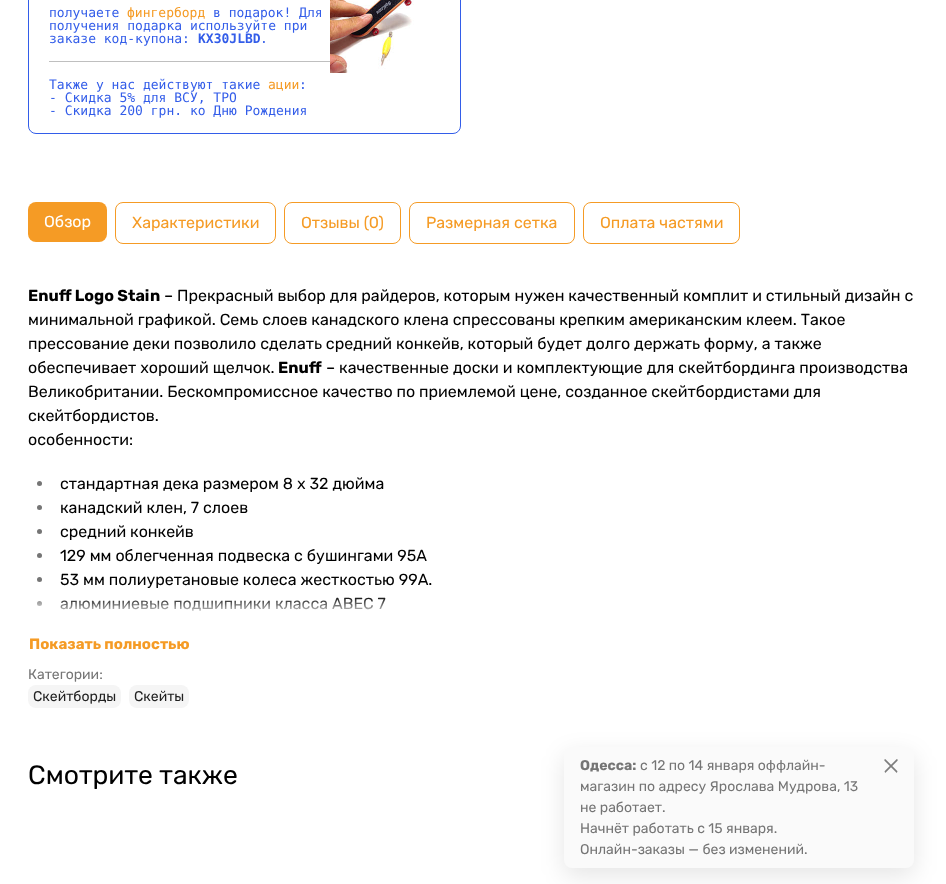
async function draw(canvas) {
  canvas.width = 946;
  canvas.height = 884;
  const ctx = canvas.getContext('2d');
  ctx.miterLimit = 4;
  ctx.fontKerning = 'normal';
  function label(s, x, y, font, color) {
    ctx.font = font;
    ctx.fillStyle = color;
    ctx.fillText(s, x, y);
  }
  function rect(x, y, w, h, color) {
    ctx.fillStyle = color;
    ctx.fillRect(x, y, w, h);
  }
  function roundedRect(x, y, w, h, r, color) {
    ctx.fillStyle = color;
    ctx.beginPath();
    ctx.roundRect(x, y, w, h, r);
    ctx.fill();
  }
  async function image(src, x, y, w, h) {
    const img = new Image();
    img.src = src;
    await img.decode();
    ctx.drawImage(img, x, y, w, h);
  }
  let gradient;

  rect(0, 0, 946, 884, '#fff');
  ctx.beginPath();
  ctx.roundRect(28.5, -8.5, 432, 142, 7.5);
  ctx.strokeStyle = '#335de9';
  ctx.stroke();
  label('получаете', 49, 17, '13px DejaVu Sans Mono', '#335de9');
  label('фингерборд', 127, 17, '13px DejaVu Sans Mono', '#f59b25');
  label('в подарок! Для', 213, 17, '13px DejaVu Sans Mono', '#335de9');
  await image('assets/img1.png', 330, 0, 84, 73);
  label('получения подарка используйте при', 49, 30, '13px DejaVu Sans Mono', '#335de9');
  label('заказе код-купона:', 49, 43, '13px DejaVu Sans Mono', '#335de9');
  label('KX30JLBD', 198, 43, 'bold 13px DejaVu Sans Mono', '#335de9');
  label('.', 260, 43, '13px DejaVu Sans Mono', '#335de9');
  rect(49, 61, 281, 1, '#bfbfbf');
  label('Также у нас действуют такие', 49, 89, '13px DejaVu Sans Mono', '#335de9');
  label('ации', 268, 89, '13px DejaVu Sans Mono', '#f59b25');
  label(':', 299, 89, '13px DejaVu Sans Mono', '#335de9');
  label('- Скидка 5% для ВСУ, ТРО', 49, 102, '13px DejaVu Sans Mono', '#335de9');
  label('- Скидка 200 грн. ко Дню Рождения', 49, 115, '13px DejaVu Sans Mono', '#335de9');
  roundedRect(28, 202, 79, 40, 8, '#f59b25');
  label('Обзор', 44, 227, '300 16px Rubik', '#fff');
  ctx.beginPath();
  ctx.roundRect(115.5, 202.5, 160, 41, 7.5);
  ctx.strokeStyle = '#f59b25';
  ctx.stroke();
  label('Характеристики', 132, 228, '300 16px Rubik', '#f59b25');
  ctx.beginPath();
  ctx.roundRect(284.5, 202.5, 116, 41, 7.5);
  ctx.stroke();
  label('Отзывы (0)', 301, 228, '300 16px Rubik', '#f59b25');
  ctx.beginPath();
  ctx.roundRect(409.5, 202.5, 165, 41, 7.5);
  ctx.stroke();
  label('Размерная сетка', 426, 228, '300 16px Rubik', '#f59b25');
  ctx.beginPath();
  ctx.roundRect(583.5, 202.5, 156, 41, 7.5);
  ctx.stroke();
  label('Оплата частями', 600, 228, '300 16px Rubik', '#f59b25');
  label('Enuff Logo Stain', 28, 301, '300 16px "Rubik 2"', '#000');
  label('– Прекрасный выбор для райдеров, которым нужен качественный комплит и стильный дизайн с', 164, 301, '300 16px Rubik', '#000');
  label('минимальной графикой. Семь слоев канадского клена спрессованы крепким американским клеем. Такое', 28, 325, '300 16px Rubik', '#000');
  label('прессование деки позволило сделать средний конкейв, который будет долго держать форму, а также', 28, 349, '300 16px Rubik', '#000');
  label('обеспечивает хороший щелчок.', 28, 373, '300 16px Rubik', '#000');
  label('Enuff', 278, 373, '300 16px "Rubik 2"', '#000');
  label('– качественные доски и комплектующие для скейтбординга производства', 326, 373, '300 16px Rubik', '#000');
  label('Великобритании. Бескомпромиссное качество по приемлемой цене, созданное скейтбордистами для', 28, 397, '300 16px Rubik', '#000');
  label('скейтбордистов.', 28, 421, '300 16px Rubik', '#000');
  label('особенности:', 28, 445, '300 16px Rubik', '#000');
  ctx.fillStyle = '#757575';
  ctx.beginPath();
  ctx.arc(39.5, 483.5, 2.5, 0, 2 * Math.PI);
  ctx.fill();
  label('стандартная дека размером 8 х 32 дюйма', 60, 489, '300 16px Rubik', '#000');
  ctx.fillStyle = '#757575';
  ctx.beginPath();
  ctx.arc(39.5, 507.5, 2.5, 0, 2 * Math.PI);
  ctx.fill();
  label('канадский клен, 7 слоев', 60, 513, '300 16px Rubik', '#000');
  ctx.fillStyle = '#757575';
  ctx.beginPath();
  ctx.arc(39.5, 531.5, 2.5, 0, 2 * Math.PI);
  ctx.fill();
  label('средний конкейв', 60, 537, '300 16px Rubik', '#000');
  ctx.fillStyle = '#757575';
  ctx.beginPath();
  ctx.arc(39.5, 555.5, 2.5, 0, 2 * Math.PI);
  ctx.fill();
  label('129 мм облегченная подвеска с бушингами 95А', 60, 561, '300 16px Rubik', '#000');
  ctx.fillStyle = '#757575';
  ctx.beginPath();
  ctx.arc(39.5, 579.5, 2.5, 0, 2 * Math.PI);
  ctx.fill();
  label('53 мм полиуретановые колеса жесткостью 99А.', 60, 585, '300 16px Rubik', '#000');
  ctx.fillStyle = '#757575';
  ctx.beginPath();
  ctx.arc(39.5, 603.5, 2.5, 0, 2 * Math.PI);
  ctx.fill();
  label('алюминиевые подшипники класса ABEC 7', 60, 609, '300 16px Rubik', '#000');
  gradient = ctx.createLinearGradient(473, 596, 473, 616);
  gradient.addColorStop(0, '#ffffff00');
  gradient.addColorStop(1, '#fff');
  ctx.fillStyle = gradient;
  ctx.fillRect(37, 597, 349, 14);
  label('Показать полностью', 29, 649, '300 15px "Rubik 2"', '#f59b25');
  label('Категории:', 28, 679, '300 14px Rubik', '#757575');
  roundedRect(28, 685, 93, 23, 8, '#f5f5f5');
  label('Скейтборды', 33, 701, '300 14px Rubik', '#212121');
  roundedRect(129, 685, 60, 23, 8, '#f5f5f5');
  label('Скейты', 134, 701, '300 14px Rubik', '#212121');
  label('Смотрите также', 28, 784, '300 26.5px Rubik', '#000');
  ctx.fillStyle = '#0000001a';
  ctx.filter = 'blur(12px)';
  ctx.beginPath();
  ctx.roundRect(564, 755, 350, 121, 8);
  ctx.fill();
  ctx.filter = 'none';
  roundedRect(564, 747, 350, 121, 8, '#fafafa');
  label('Одесса:', 580, 770, '300 14px "Rubik 2"', '#757575');
  label('с 12 по 14 января оффлайн-', 640, 770, '300 14px Rubik', '#757575');
  label('магазин по адресу Ярослава Мудрова, 13', 580, 791, '300 14px Rubik', '#757575');
  label('не работает.', 580, 812, '300 14px Rubik', '#757575');
  label('Начнёт работать с 15 января.', 580, 833, '300 14px Rubik', '#757575');
  label('Онлайн-заказы — без изменений.', 580, 854, '300 14px Rubik', '#757575');
  await image('assets/img2.png', 884, 759, 14, 14);
}

draw(document.querySelector('canvas'));
